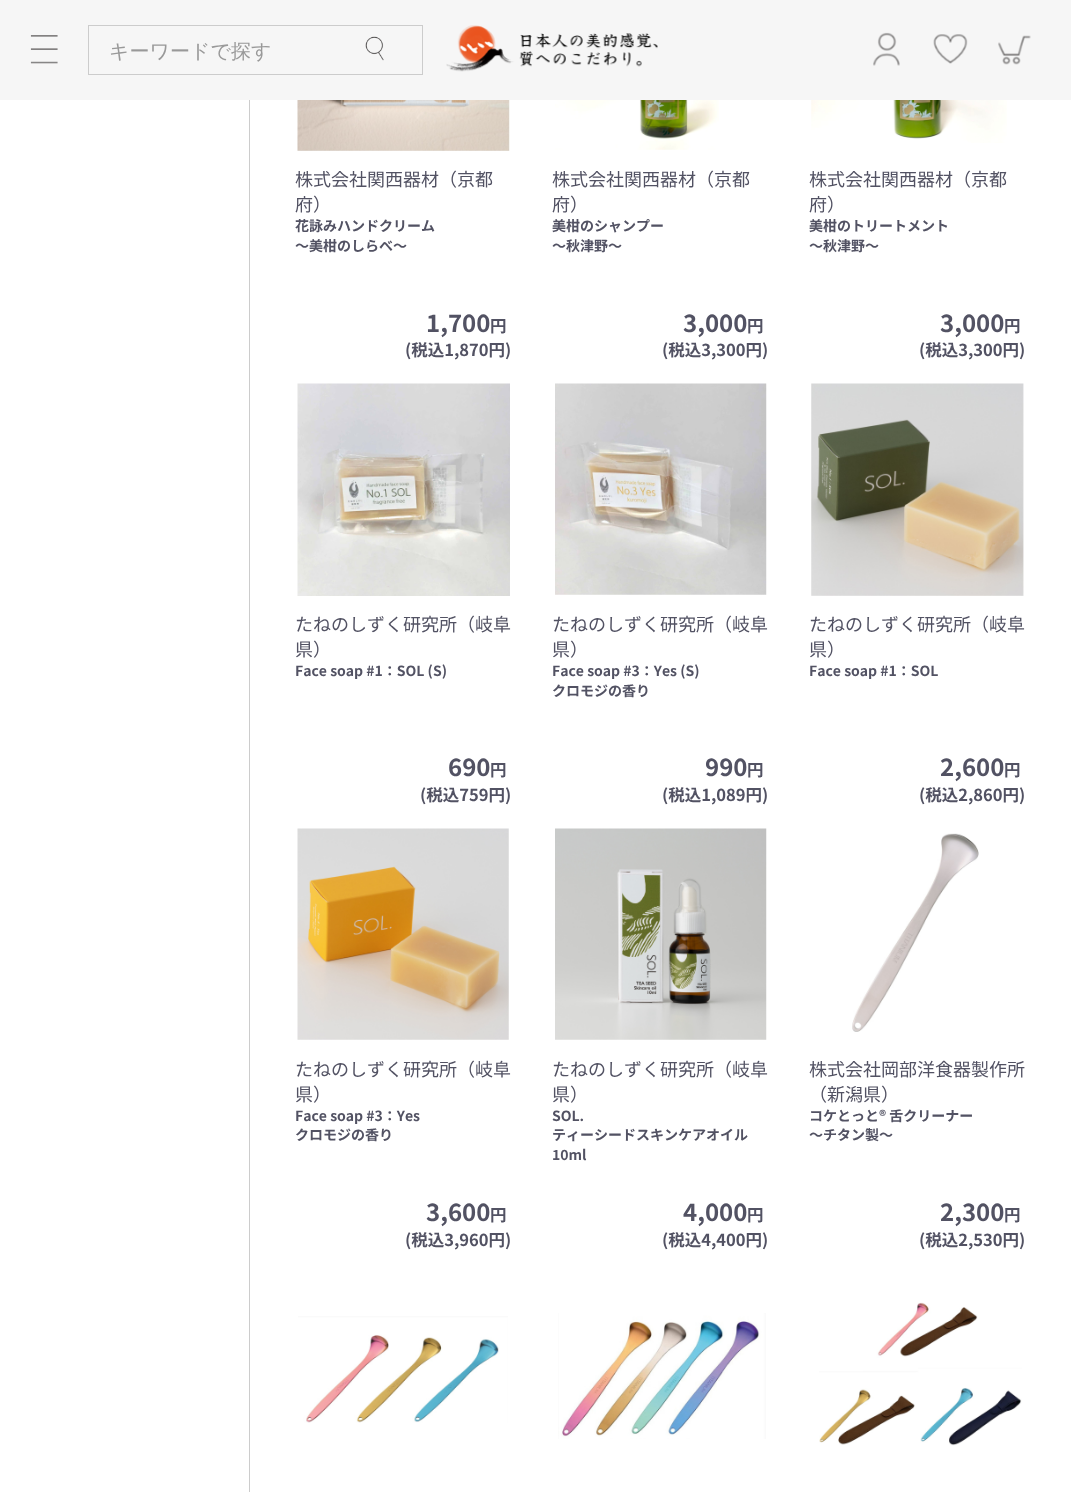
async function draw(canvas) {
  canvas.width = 1071;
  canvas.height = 1492;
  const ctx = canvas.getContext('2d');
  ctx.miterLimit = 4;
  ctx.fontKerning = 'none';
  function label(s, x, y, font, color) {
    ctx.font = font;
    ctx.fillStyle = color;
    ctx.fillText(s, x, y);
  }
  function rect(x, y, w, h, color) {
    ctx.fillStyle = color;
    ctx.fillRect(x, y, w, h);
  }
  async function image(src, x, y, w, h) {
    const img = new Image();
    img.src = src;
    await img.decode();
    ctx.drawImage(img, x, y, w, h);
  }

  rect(0, 0, 1071, 1492, '#fff');
  rect(0, 0, 1071, 100, '#f6f6f6');
  await image('assets/img1.png', 30, 35, 28, 29);
  ctx.strokeStyle = '#ccc';
  ctx.strokeRect(88.5, 25.5, 334, 49);
  label('キーワードで探す', 109, 58, '500 20px WenQuanYi Zen Hei', '#999');
  await image('assets/img2.png', 365, 36, 19, 25);
  await image('assets/img3.png', 446, 25, 212, 47);
  await image('assets/img4.png', 873, 32, 27, 34);
  await image('assets/img5.png', 933, 34, 35, 30);
  await image('assets/img6.png', 998, 35, 33, 30);
  rect(249, 100, 1, 1392, '#ccc');
  await image('assets/img7.png', 297, 100, 213, 51);
  label('株式会社関西器材（京都', 295, 186, '18px Noto Sans JP', '#525263');
  label('府）', 295, 211, '18px Noto Sans JP', '#525263');
  label('花詠みハンドクリーム', 295, 231, 'bold 14px Noto Sans JP', '#525263');
  label('～美柑のしらべ～', 295, 251, 'bold 14px Noto Sans JP', '#525263');
  label('1,700', 426, 332, 'bold 24px Noto Sans JP', '#525263');
  label('円', 490, 332, 'bold 16.5px Noto Sans JP', '#525263');
  label('(税込1,870円)', 405, 356, 'bold 16.5px Noto Sans JP', '#525263');
  await image('assets/img8.png', 555, 100, 164, 50);
  label('株式会社関西器材（京都', 552, 186, '18px Noto Sans JP', '#525263');
  label('府）', 552, 211, '18px Noto Sans JP', '#525263');
  label('美柑のシャンプー', 552, 231, 'bold 14px Noto Sans JP', '#525263');
  label('～秋津野～', 552, 251, 'bold 14px Noto Sans JP', '#525263');
  label('3,000', 683, 332, 'bold 24px Noto Sans JP', '#525263');
  label('円', 747, 332, 'bold 16.5px Noto Sans JP', '#525263');
  label('(税込3,300円)', 662, 356, 'bold 16.5px Noto Sans JP', '#525263');
  await image('assets/img9.png', 811, 100, 196, 43);
  label('株式会社関西器材（京都', 809, 186, '18px Noto Sans JP', '#525263');
  label('府）', 809, 211, '18px Noto Sans JP', '#525263');
  label('美柑のトリートメント', 809, 231, 'bold 14px Noto Sans JP', '#525263');
  label('～秋津野～', 809, 251, 'bold 14px Noto Sans JP', '#525263');
  label('3,000', 940, 332, 'bold 24px Noto Sans JP', '#525263');
  label('円', 1004, 332, 'bold 16.5px Noto Sans JP', '#525263');
  label('(税込3,300円)', 919, 356, 'bold 16.5px Noto Sans JP', '#525263');
  await image('assets/img10.png', 297, 383, 213, 213);
  label('たねのしずく研究所（岐阜', 295, 631, '18px Noto Sans JP', '#525263');
  label('県）', 295, 656, '18px Noto Sans JP', '#525263');
  label('Face soap #1：SOL (S)', 295, 676, 'bold 14px Noto Sans JP', '#525263');
  label('690', 448, 776, 'bold 24px Noto Sans JP', '#525263');
  label('円', 490, 776, 'bold 16.5px Noto Sans JP', '#525263');
  label('(税込759円)', 420, 801, 'bold 16.5px Noto Sans JP', '#525263');
  await image('assets/img11.png', 555, 383, 212, 212);
  label('たねのしずく研究所（岐阜', 552, 631, '18px Noto Sans JP', '#525263');
  label('県）', 552, 656, '18px Noto Sans JP', '#525263');
  label('Face soap #3：Yes (S)', 552, 676, 'bold 14px Noto Sans JP', '#525263');
  label('クロモジの香り', 552, 696, 'bold 14px Noto Sans JP', '#525263');
  label('990', 705, 776, 'bold 24px Noto Sans JP', '#525263');
  label('円', 747, 776, 'bold 16.5px Noto Sans JP', '#525263');
  label('(税込1,089円)', 662, 801, 'bold 16.5px Noto Sans JP', '#525263');
  await image('assets/img12.png', 811, 383, 213, 213);
  label('たねのしずく研究所（岐阜', 809, 631, '18px Noto Sans JP', '#525263');
  label('県）', 809, 656, '18px Noto Sans JP', '#525263');
  label('Face soap #1：SOL', 809, 676, 'bold 14px Noto Sans JP', '#525263');
  label('2,600', 940, 776, 'bold 24px Noto Sans JP', '#525263');
  label('円', 1004, 776, 'bold 16.5px Noto Sans JP', '#525263');
  label('(税込2,860円)', 919, 801, 'bold 16.5px Noto Sans JP', '#525263');
  await image('assets/img13.png', 297, 828, 212, 212);
  label('たねのしずく研究所（岐阜', 295, 1076, '18px Noto Sans JP', '#525263');
  label('県）', 295, 1101, '18px Noto Sans JP', '#525263');
  label('Face soap #3：Yes', 295, 1121, 'bold 14px Noto Sans JP', '#525263');
  label('クロモジの香り', 295, 1140, 'bold 14px Noto Sans JP', '#525263');
  label('3,600', 426, 1221, 'bold 24px Noto Sans JP', '#525263');
  label('円', 490, 1221, 'bold 16.5px Noto Sans JP', '#525263');
  label('(税込3,960円)', 405, 1246, 'bold 16.5px Noto Sans JP', '#525263');
  await image('assets/img14.png', 555, 828, 212, 212);
  label('たねのしずく研究所（岐阜', 552, 1076, '18px Noto Sans JP', '#525263');
  label('県）', 552, 1101, '18px Noto Sans JP', '#525263');
  label('SOL.', 552, 1121, 'bold 14px Noto Sans JP', '#525263');
  label('ティーシードスキンケアオイル', 552, 1140, 'bold 14px Noto Sans JP', '#525263');
  label('10ml', 552, 1160, 'bold 14px Noto Sans JP', '#525263');
  label('4,000', 683, 1221, 'bold 24px Noto Sans JP', '#525263');
  label('円', 747, 1221, 'bold 16.5px Noto Sans JP', '#525263');
  label('(税込4,400円)', 662, 1246, 'bold 16.5px Noto Sans JP', '#525263');
  await image('assets/img15.png', 852, 833, 127, 199);
  label('株式会社岡部洋食器製作所', 809, 1076, '18px Noto Sans JP', '#525263');
  label('（新潟県）', 809, 1101, '18px Noto Sans JP', '#525263');
  label('コケとっと® 舌クリーナー', 809, 1121, 'bold 14px Noto Sans JP', '#525263');
  label('～チタン製～', 809, 1140, 'bold 14px Noto Sans JP', '#525263');
  label('2,300', 940, 1221, 'bold 24px Noto Sans JP', '#525263');
  label('円', 1004, 1221, 'bold 16.5px Noto Sans JP', '#525263');
  label('(税込2,530円)', 919, 1246, 'bold 16.5px Noto Sans JP', '#525263');
  await image('assets/img16.png', 298, 1316, 210, 107);
  await image('assets/img17.png', 558, 1313, 208, 126);
  await image('assets/img18.png', 819, 1302, 203, 144);
}

draw(document.querySelector('canvas'));
